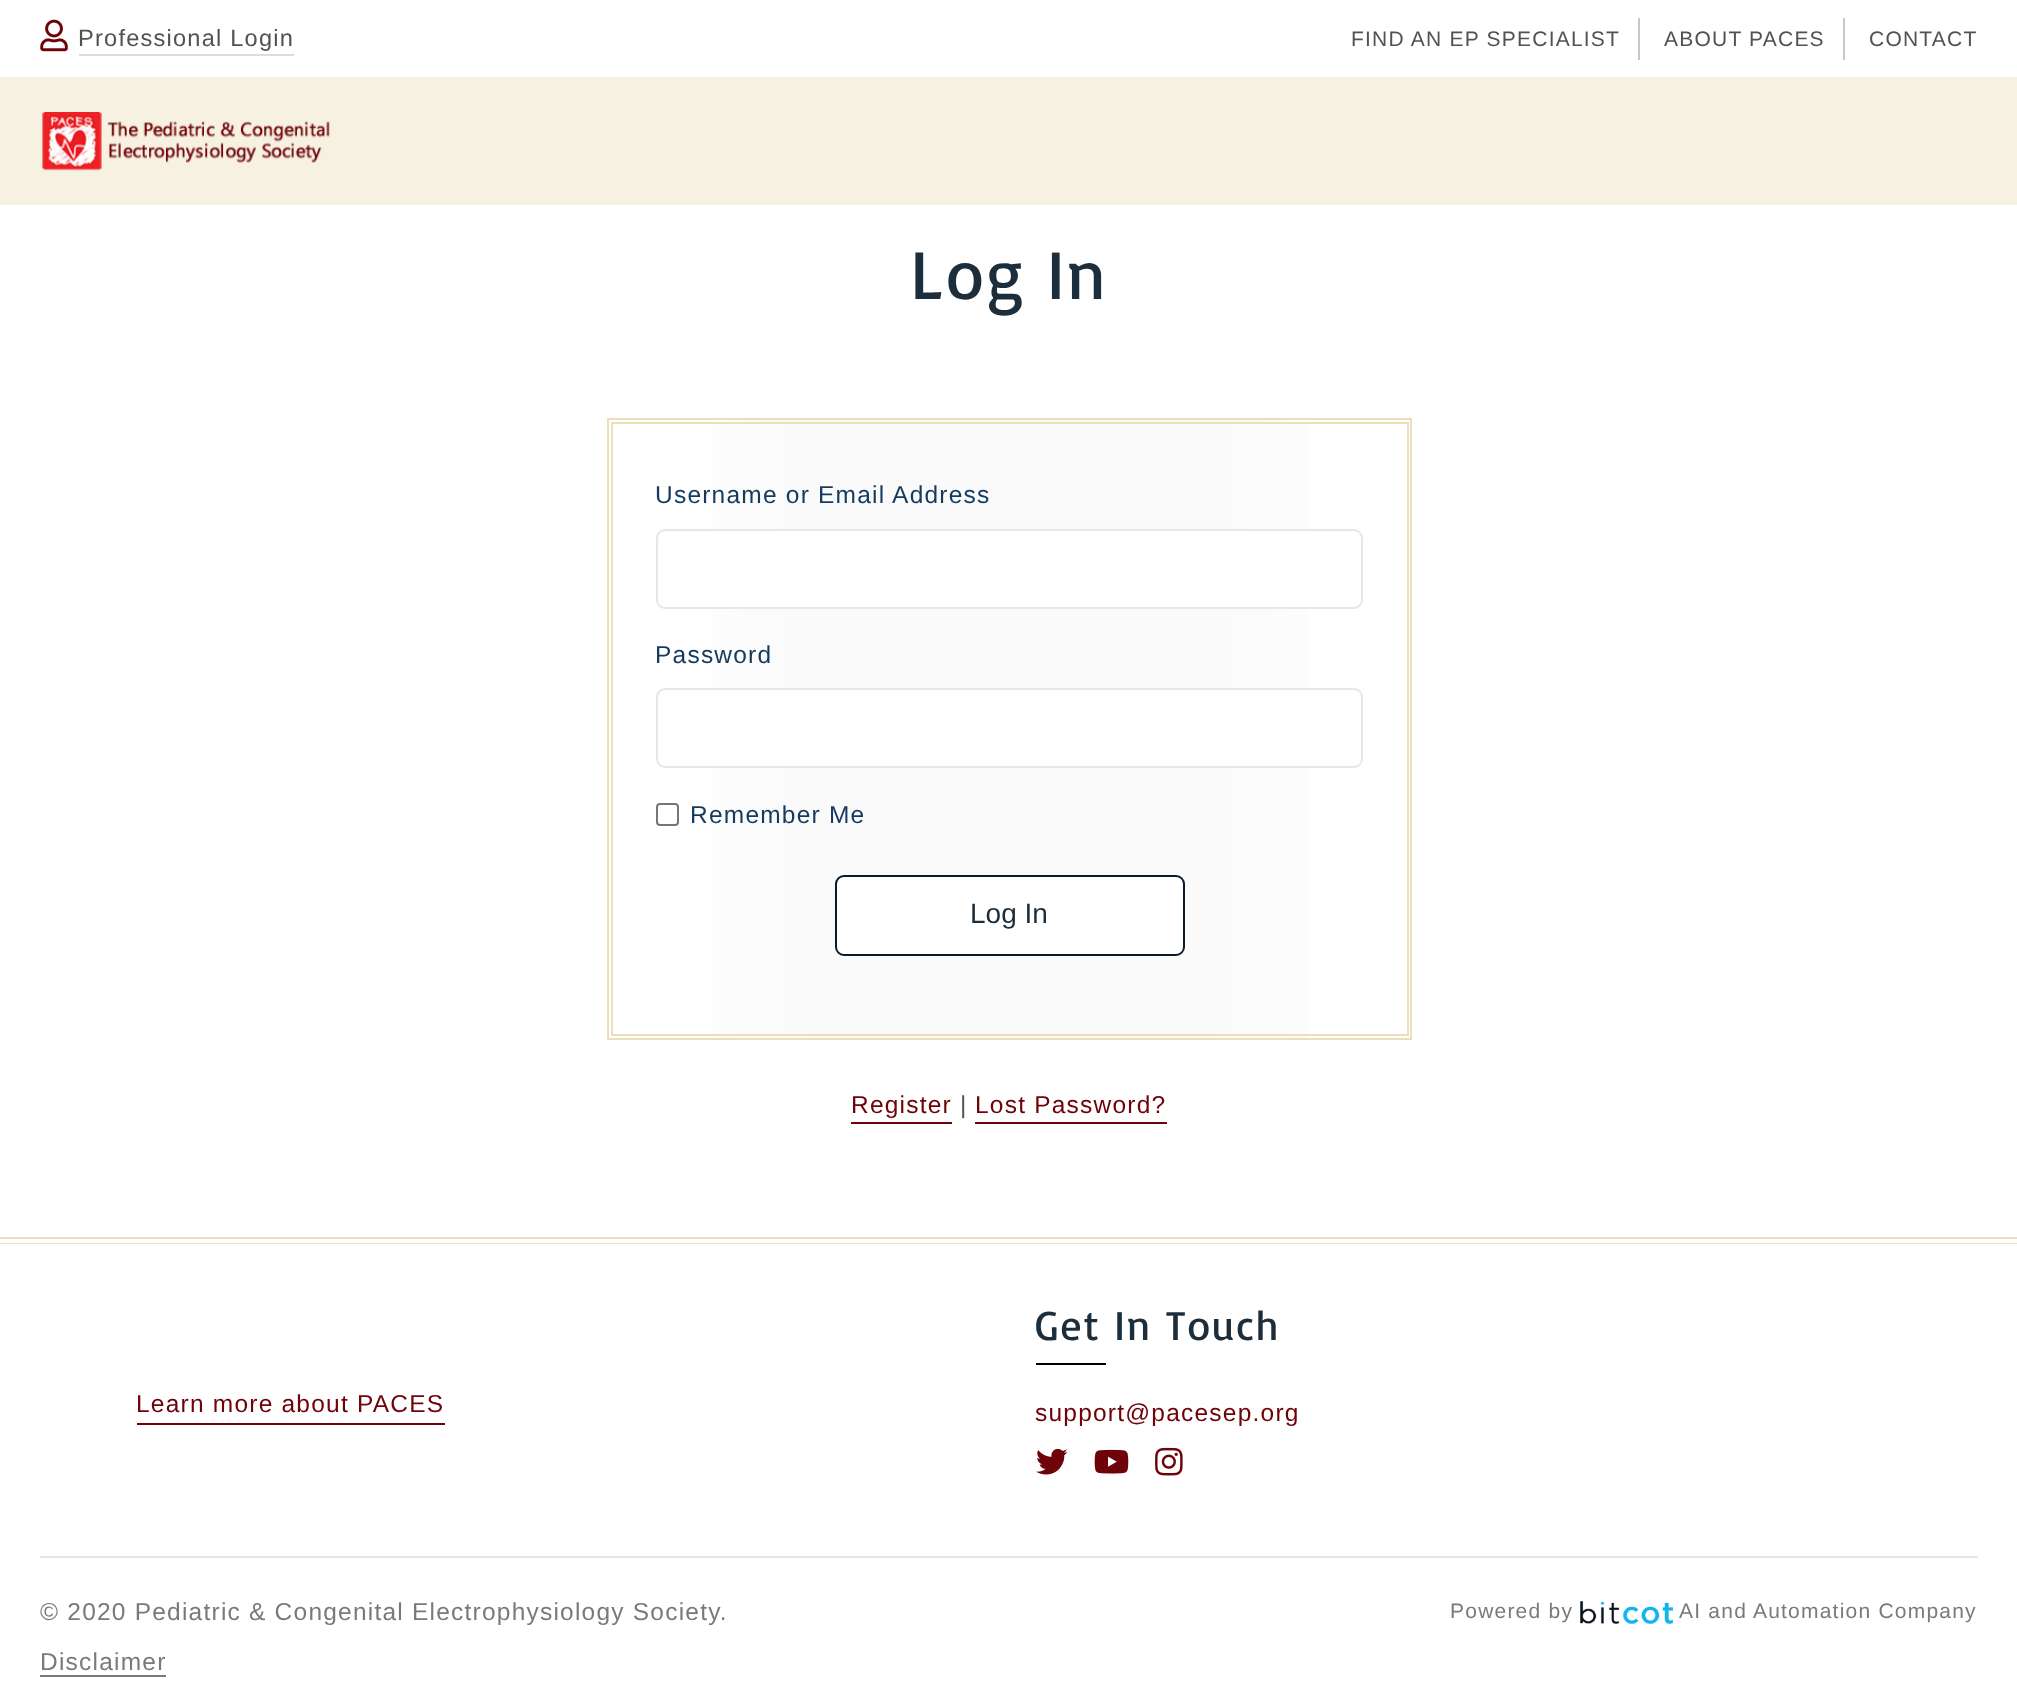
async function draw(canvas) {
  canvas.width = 2017;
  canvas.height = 1708;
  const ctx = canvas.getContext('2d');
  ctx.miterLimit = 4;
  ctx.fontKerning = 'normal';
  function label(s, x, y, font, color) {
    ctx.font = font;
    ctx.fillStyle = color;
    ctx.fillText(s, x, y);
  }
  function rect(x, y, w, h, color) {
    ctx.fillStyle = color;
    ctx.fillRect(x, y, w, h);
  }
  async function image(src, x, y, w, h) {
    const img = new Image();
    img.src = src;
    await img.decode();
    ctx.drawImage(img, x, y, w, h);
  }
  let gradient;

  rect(0, 0, 2017, 1708, '#fff');
  await image('assets/img1.png', 40, 19, 28, 33);
  ctx.letterSpacing = '1.22px';
  label('Professional Login', 78, 46, '23.6px Liberation Sans', '#525252');
  rect(79, 54, 215, 2, '#ddd');
  rect(1638, 18, 2, 42, '#c8c7c7');
  label('FIND AN EP SPECIALIST', 1351, 46, '21px Liberation Sans', '#525252');
  rect(1843, 18, 2, 42, '#c8c7c7');
  label('ABOUT PACES', 1664, 46, '21px Liberation Sans', '#525252');
  label('CONTACT', 1869, 46, '21px Liberation Sans', '#525252');
  rect(0, 77, 2017, 128, '#f7f1e1');
  await image('assets/img2.png', 42, 112, 288, 59);
  ctx.letterSpacing = '1.75px';
  label('Log In', 910, 299, '70px Basic', '#1c2e3b');
  gradient = ctx.createLinearGradient(1407, 729, 613, 729);
  gradient.addColorStop(0, '#fff');
  gradient.addColorStop(0.25, '#fafafa');
  gradient.addColorStop(0.75, '#fafafa');
  gradient.addColorStop(1, '#fff');
  ctx.fillStyle = gradient;
  ctx.fillRect(712, 420, 596, 618);
  ctx.strokeStyle = '#ecdeb9';
  ctx.lineWidth = 2;
  ctx.strokeRect(608, 419, 803, 620);
  ctx.strokeRect(612, 423, 796, 612);
  ctx.letterSpacing = '1.22px';
  label('Username or Email Address', 655, 503, '24.5px Liberation Sans', '#143a5f');
  ctx.fillStyle = '#fff';
  ctx.beginPath();
  ctx.roundRect(657, 530, 705, 78, 8);
  ctx.fill();
  ctx.strokeStyle = '#e8e7e7';
  ctx.stroke();
  label('Password', 655, 663, '24.5px Liberation Sans', '#143a5f');
  ctx.fillStyle = '#fff';
  ctx.beginPath();
  ctx.roundRect(657, 689, 705, 78, 8);
  ctx.fill();
  ctx.stroke();
  ctx.beginPath();
  ctx.roundRect(657, 804, 21, 21, 3);
  ctx.strokeStyle = '#767676';
  ctx.stroke();
  label('Remember Me', 690, 823, '24.5px Liberation Sans', '#143a5f');
  ctx.fillStyle = '#fff';
  ctx.beginPath();
  ctx.roundRect(836, 876, 348, 79, 8);
  ctx.fill();
  ctx.strokeStyle = '#061b2e';
  ctx.stroke();
  ctx.letterSpacing = '0px';
  label('Log In', 970, 923, '28px Liberation Sans', '#1c2e3b');
  ctx.letterSpacing = '1.22px';
  label('Register', 851, 1113, '24.5px Liberation Sans', '#6e0309');
  rect(851, 1122, 101, 2, '#6e0309');
  label('|', 960, 1113, '24.5px Liberation Sans', '#525252');
  label('Lost Password?', 975, 1113, '24.5px Liberation Sans', '#6e0309');
  rect(975, 1122, 192, 2, '#6e0309');
  rect(0, 1237, 2017, 2, '#ecdeb9');
  rect(0, 1243, 2017, 1, '#ecdeb9');
  rect(137, 1423, 308, 2, '#6e0309');
  label('Learn more about PACES', 136, 1412, '24.5px Liberation Sans', '#6e0309');
  ctx.letterSpacing = '1.75px';
  label('Get In Touch', 1035, 1340, '42px Basic', '#1c2e3b');
  rect(1036, 1363, 70, 2, '#000');
  ctx.letterSpacing = '1.22px';
  label('support@pacesep.org', 1035, 1421, '24.5px Liberation Sans', '#6e0309');
  await image('assets/img3.png', 1036, 1448, 32, 27);
  await image('assets/img4.png', 1094, 1449, 35, 25);
  await image('assets/img5.png', 1155, 1447, 28, 29);
  rect(40, 1556, 1938, 2, '#e7e7e7');
  label('© 2020 Pediatric & Congenital Electrophysiology Society.', 40, 1620, '24.5px Liberation Sans', '#7a7a7a');
  label('Disclaimer', 40, 1670, '24.5px Liberation Sans', '#7a7a7a');
  rect(40, 1675, 126, 2, '#7a7a7a');
  label('Powered by', 1450, 1618, '21px Liberation Sans', '#7a7a7a');
  await image('assets/img6.png', 1580, 1601, 93, 23);
  label('AI and Automation Company', 1679, 1618, '21px Liberation Sans', '#7a7a7a');
}

draw(document.querySelector('canvas'));
